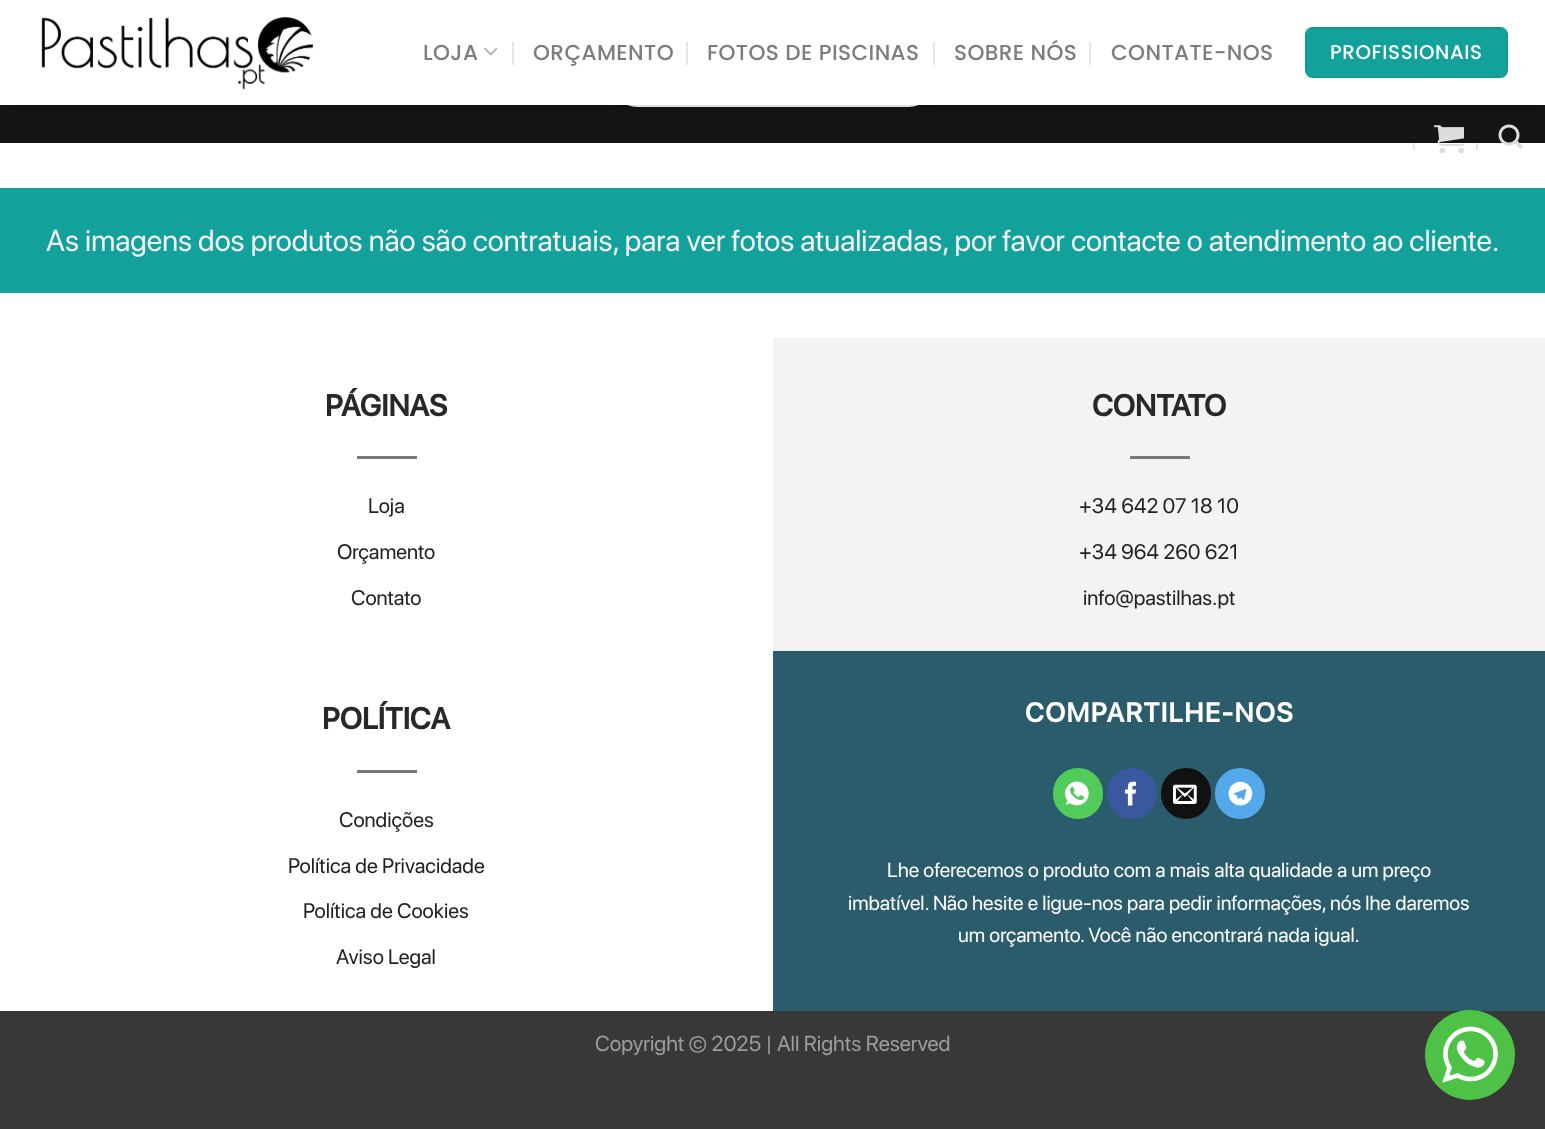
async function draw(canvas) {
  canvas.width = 1545;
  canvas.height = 1129;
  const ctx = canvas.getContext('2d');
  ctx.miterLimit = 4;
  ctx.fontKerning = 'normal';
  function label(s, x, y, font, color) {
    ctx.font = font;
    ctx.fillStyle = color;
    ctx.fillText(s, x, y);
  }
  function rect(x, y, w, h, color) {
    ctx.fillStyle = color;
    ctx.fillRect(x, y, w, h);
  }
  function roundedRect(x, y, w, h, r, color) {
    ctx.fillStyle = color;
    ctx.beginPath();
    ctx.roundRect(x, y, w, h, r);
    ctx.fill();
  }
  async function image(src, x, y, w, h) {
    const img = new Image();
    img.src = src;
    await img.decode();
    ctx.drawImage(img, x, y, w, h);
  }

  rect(0, 0, 1545, 1129, '#383838');
  rect(0, 143, 1545, 868, '#fff');
  rect(1476, 143, 2, 7, '#e6e6e6');
  rect(1413, 143, 2, 7, '#e6e6e6');
  rect(0, 105, 1545, 38, '#141615');
  roundedRect(611, 54, 324, 53, 26.5, '#fff');
  ctx.strokeStyle = '#0000000d';
  ctx.lineWidth = 2;
  ctx.strokeRect(612, 55, 322, 51);
  ctx.fillStyle = '#00000026';
  ctx.filter = 'blur(7.5px)';
  ctx.beginPath();
  ctx.rect(2, 2, 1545, 105);
  ctx.fill();
  ctx.filter = 'none';
  rect(0, 0, 1545, 105, '#fff');
  await image('assets/img1.png', 41, 17, 273, 73);
  ctx.letterSpacing = '0.4px';
  label('LOJA', 423, 60, '500 21.6px Poppins', '#7d7d7d');
  await image('assets/img2.png', 484, 47, 14, 9);
  rect(512, 42, 2, 23, '#e6e6e6');
  label('ORÇAMENTO', 533, 60, '500 21.6px Poppins', '#7d7d7d');
  rect(686, 42, 2, 23, '#e6e6e6');
  label('FOTOS DE PISCINAS', 707, 60, '500 21.6px Poppins', '#7d7d7d');
  rect(933, 42, 2, 23, '#e6e6e6');
  label('SOBRE NÓS', 954, 60, '500 21.6px Poppins', '#7d7d7d');
  rect(1089, 42, 2, 23, '#e6e6e6');
  label('CONTATE-NOS', 1111, 60, '500 21.6px Poppins', '#7d7d7d');
  roundedRect(1305, 27, 203, 51, 8, '#12a19b');
  ctx.strokeRect(1306, 28, 201, 49);
  ctx.letterSpacing = '0.6px';
  label('PROFISSIONAIS', 1330, 59, '500 19.75px Poppins', '#fff');
  await image('assets/img3.png', 1434, 125, 30, 29);
  await image('assets/img4.png', 1498, 124, 25, 25);
  rect(0, 188, 1545, 105, '#12a19b');
  ctx.letterSpacing = '0px';
  label('As imagens dos produtos não são contratuais, para ver fotos atualizadas, por favor contacte o atendimento ao cliente.', 46, 251, '30px SF Pro Display', '#f1f1f1');
  label('PÁGINAS', 325, 416, 'bold 30px SF Pro Display', '#2a2727');
  rect(357, 456, 60, 3, '#777');
  label('Loja', 368, 513, '21px SF Pro Display', '#222');
  label('Orçamento', 337, 559, '21px SF Pro Display', '#222');
  label('Contato', 351, 605, '21px SF Pro Display', '#222');
  rect(773, 338, 772, 313, '#f3f3f3');
  label('CONTATO', 1092, 416, 'bold 30px SF Pro Display', '#2a2727');
  rect(1130, 456, 60, 3, '#777');
  label('+34 642 07 18 10', 1079, 513, '21px SF Pro Display', '#222');
  label('+34 964 260 621', 1079, 559, '21px SF Pro Display', '#222');
  label('info@pastilhas.pt', 1083, 605, '21px SF Pro Display', '#222');
  label('POLÍTICA', 322, 729, 'bold 30px SF Pro Display', '#2a2727');
  rect(357, 770, 60, 3, '#777');
  label('Condições', 339, 827, '21px SF Pro Display', '#222');
  label('Política de Privacidade', 288, 873, '21px SF Pro Display', '#222');
  label('Política de Cookies', 303, 918, '21px SF Pro Display', '#222');
  label('Aviso Legal', 336, 964, '21px SF Pro Display', '#222');
  rect(773, 651, 772, 360, '#2b5c6c');
  ctx.letterSpacing = '1.4px';
  label('COMPARTILHE-NOS', 1025, 722, 'bold 27px SF Pro Display', '#fff');
  ctx.fillStyle = '#51cb5a';
  ctx.beginPath();
  ctx.roundRect(1054, 769, 48, 49, 24);
  ctx.fill();
  ctx.strokeStyle = '#51cb5a';
  ctx.stroke();
  await image('assets/img5.png', 1065, 781, 24, 25);
  ctx.fillStyle = '#3a589d';
  ctx.beginPath();
  ctx.roundRect(1108, 769, 48, 49, 24);
  ctx.fill();
  ctx.strokeStyle = '#3a589d';
  ctx.stroke();
  await image('assets/img6.png', 1124, 781, 12, 25);
  ctx.fillStyle = '#111';
  ctx.beginPath();
  ctx.roundRect(1162, 769, 48, 49, 24);
  ctx.fill();
  ctx.strokeStyle = '#111';
  ctx.stroke();
  await image('assets/img7.png', 1173, 784, 24, 20);
  ctx.fillStyle = '#54a9ea';
  ctx.beginPath();
  ctx.roundRect(1216, 769, 48, 49, 24);
  ctx.fill();
  ctx.strokeStyle = '#54a9ea';
  ctx.stroke();
  await image('assets/img8.png', 1228, 781, 25, 25);
  ctx.letterSpacing = '0px';
  label('Lhe oferecemos o produto com a mais alta qualidade a um preço', 887, 877, '20.4px SF Pro Display', '#fff');
  label('imbatível. Não hesite e ligue-nos para pedir informações, nós lhe daremos', 848, 910, '20.4px SF Pro Display', '#fff');
  label('um orçamento. Você não encontrará nada igual.', 958, 942, '20.4px SF Pro Display', '#fff');
  label('Copyright © 2025 | All Rights Reserved', 595, 1051, '21.6px SF Pro Display', '#9c9c9c');
  ctx.fillStyle = '#4dc247';
  ctx.beginPath();
  ctx.arc(1470, 1055, 45, 0, 2 * Math.PI);
  ctx.fill();
  await image('assets/img9.png', 1442, 1026, 56, 57);
}

draw(document.querySelector('canvas'));
